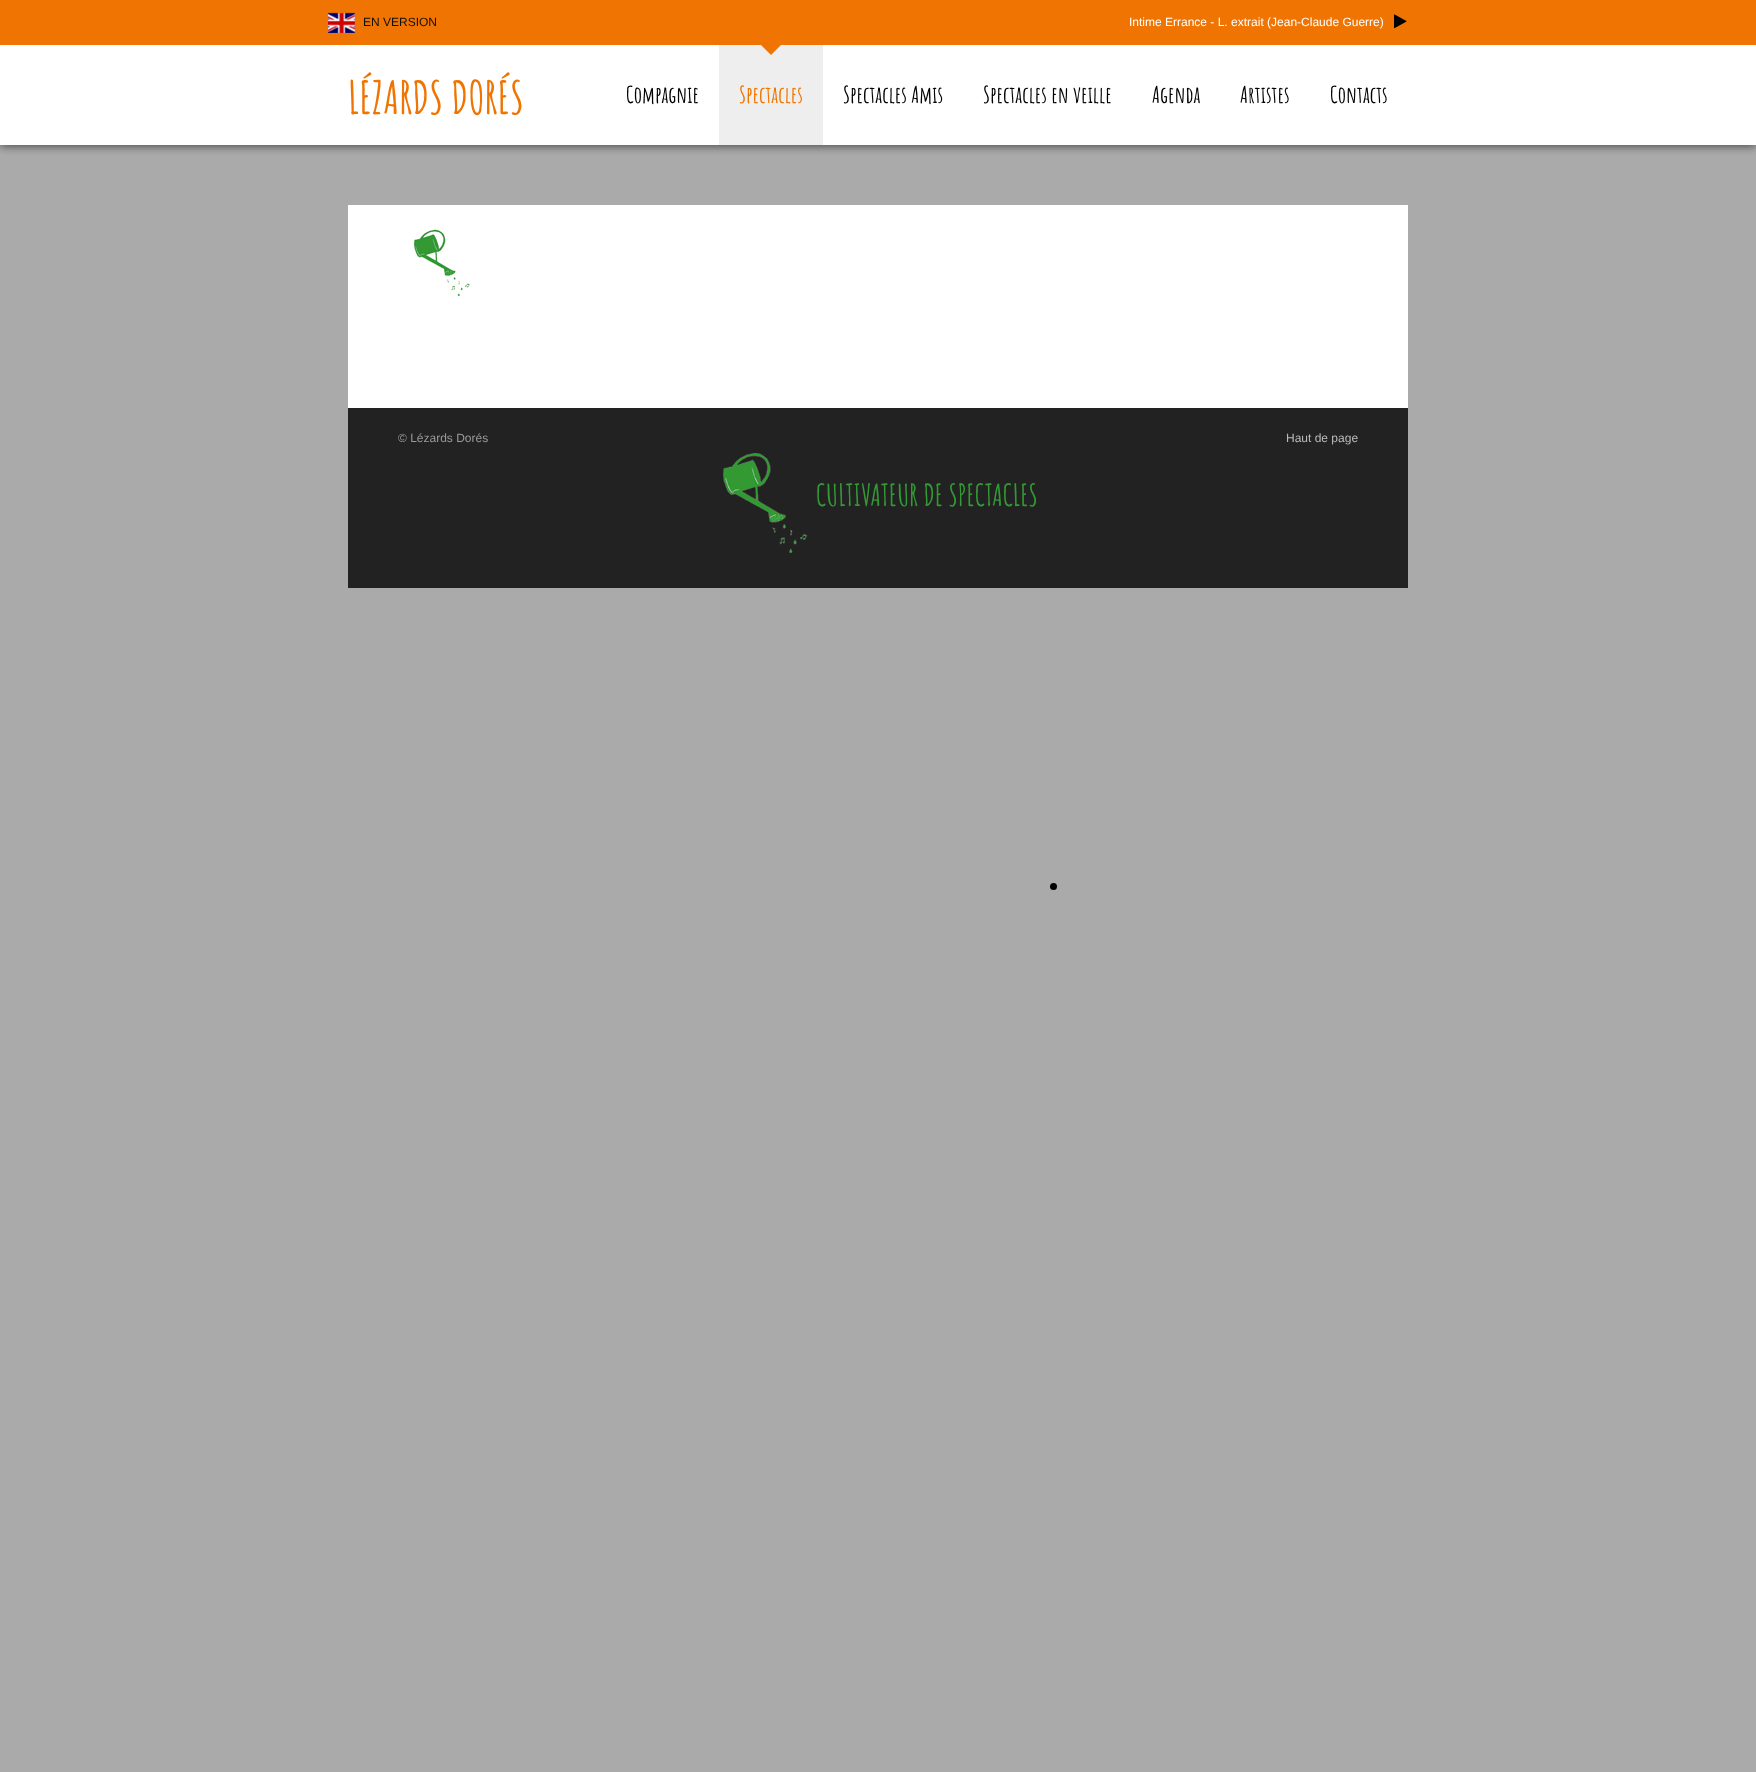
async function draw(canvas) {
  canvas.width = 1756;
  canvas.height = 1772;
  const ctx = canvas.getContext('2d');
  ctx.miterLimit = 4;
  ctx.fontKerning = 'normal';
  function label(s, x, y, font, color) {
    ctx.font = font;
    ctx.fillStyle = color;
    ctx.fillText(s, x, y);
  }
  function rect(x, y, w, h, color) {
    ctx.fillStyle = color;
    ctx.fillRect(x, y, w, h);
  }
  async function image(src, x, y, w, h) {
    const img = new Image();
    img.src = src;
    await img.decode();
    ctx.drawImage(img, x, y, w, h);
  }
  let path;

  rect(0, 0, 1756, 1772, '#fff');
  rect(0, 145, 1756, 1627, '#aaa');
  ctx.save();
  ctx.beginPath();
  ctx.rect(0, 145, 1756, 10);
  ctx.clip();
  ctx.fillStyle = '#00000099';
  ctx.filter = 'blur(5px)';
  ctx.beginPath();
  ctx.rect(0, 41, 1756, 105);
  ctx.fill();
  ctx.filter = 'none';
  ctx.restore();
  rect(0, 0, 1756, 45, '#f07401');
  await image('assets/img1.png', 328, 12, 27, 21);
  label('EN VERSION', 363, 26, '12px Liberation Sans', '#111');
  label('Intime Errance - L. extrait (Jean-Claude Guerre)', 1129, 26, '12px Liberation Sans', '#fff');
  await image('assets/img2.png', 1394, 14, 13, 15);
  rect(719, 45, 104, 100, '#eee');
  ctx.fillStyle = '#f07401';
  path = new Path2D('M761 45H781L771 55Z');
  ctx.fill(path);
  label('LÉZARDS DORÉS', 348, 114, 'bold 45px Amatic SC', '#f07401');
  label('Compagnie', 626, 103, 'bold 23px Amatic SC', '#000');
  label('Spectacles', 739, 103, 'bold 23px Amatic SC', '#f07401');
  label('Spectacles Amis', 843, 103, 'bold 23px Amatic SC', '#000');
  label('Spectacles en veille', 983, 103, 'bold 23px Amatic SC', '#000');
  label('Agenda', 1152, 103, 'bold 23px Amatic SC', '#000');
  label('Artistes', 1240, 103, 'bold 23px Amatic SC', '#000');
  label('Contacts', 1330, 103, 'bold 23px Amatic SC', '#000');
  rect(348, 205, 1060, 203, '#fff');
  await image('assets/img3.png', 413, 229, 57, 68);
  rect(348, 408, 1060, 180, '#222');
  label('© Lézards Dorés', 398, 442, '12px Liberation Sans', '#999');
  label('Haut de page', 1286, 442, '12px Liberation Sans', '#bbb');
  await image('assets/img4.png', 723, 453, 84, 100);
  label('CULTIVATEUR DE SPECTACLES', 816, 506, 'bold 30px Amatic SC', '#339934');
  ctx.fillStyle = '#010101';
  ctx.beginPath();
  ctx.arc(1053.5, 886.5, 3.5, 0, 2 * Math.PI);
  ctx.fill();
}

draw(document.querySelector('canvas'));
